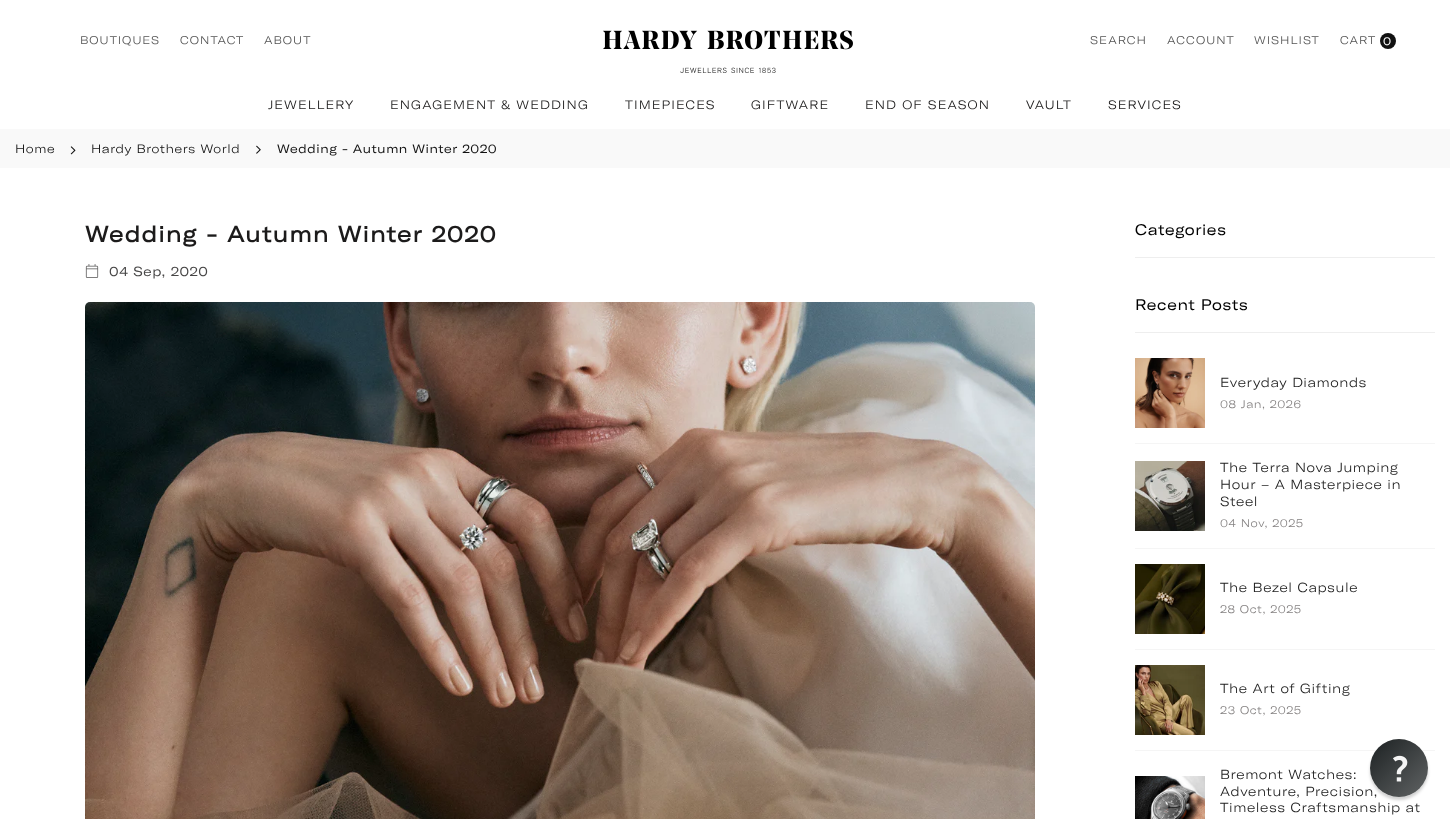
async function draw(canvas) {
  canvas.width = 1450;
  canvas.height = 819;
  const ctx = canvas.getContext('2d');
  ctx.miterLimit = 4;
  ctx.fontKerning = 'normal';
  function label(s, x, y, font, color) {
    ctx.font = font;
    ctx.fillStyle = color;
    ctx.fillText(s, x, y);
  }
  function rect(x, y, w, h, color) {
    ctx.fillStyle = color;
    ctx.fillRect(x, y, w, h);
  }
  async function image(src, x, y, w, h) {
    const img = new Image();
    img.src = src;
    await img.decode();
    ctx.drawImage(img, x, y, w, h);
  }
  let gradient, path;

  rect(0, 0, 1450, 819, '#fff');
  ctx.letterSpacing = '1px';
  label('BOUTIQUES', 80, 44, '300 11px GT America', '#555');
  label('CONTACT', 180, 44, '300 11px GT America', '#555');
  label('ABOUT', 264, 44, '300 11px GT America', '#555');
  await image('assets/img1.png', 603, 30, 250, 43);
  label('SEARCH', 1090, 44, '300 11px GT America', '#555');
  label('ACCOUNT', 1167, 44, '300 11px GT America', '#555');
  label('WISHLIST', 1254, 44, '300 11px GT America', '#555');
  label('CART', 1340, 44, '300 11px GT America', '#555');
  ctx.fillStyle = '#111';
  ctx.beginPath();
  ctx.arc(1388, 41, 8, 0, 2 * Math.PI);
  ctx.fill();
  label('0', 1383, 45, '11px GT America', '#fff');
  ctx.letterSpacing = '1.1px';
  label('JEWELLERY', 268, 109, '300 12px GT America', '#1c1b1b');
  label('ENGAGEMENT & WEDDING', 390, 109, '300 12px GT America', '#1c1b1b');
  label('TIMEPIECES', 625, 109, '300 12px GT America', '#1c1b1b');
  label('GIFTWARE', 751, 109, '300 12px GT America', '#1c1b1b');
  label('END OF SEASON', 865, 109, '300 12px GT America', '#1c1b1b');
  label('VAULT', 1026, 109, '300 12px GT America', '#1c1b1b');
  label('SERVICES', 1108, 109, '300 12px GT America', '#1c1b1b');
  rect(0, 129, 1450, 39, '#f9f9f9');
  ctx.letterSpacing = '0.55px';
  label('Home', 15, 153, '300 12px GT America', '#111');
  await image('assets/img2.png', 70, 146, 6, 9);
  label('Hardy Brothers World', 91, 153, '300 12px GT America', '#111');
  await image('assets/img3.png', 256, 145, 5, 9);
  label('Wedding - Autumn Winter 2020', 277, 153, '12px GT America', '#111');
  ctx.letterSpacing = '1.3px';
  label('Wedding - Autumn Winter 2020', 85, 242, 'bold 22px GT America', '#1c1b1b');
  await image('assets/img4.png', 85, 264, 14, 14);
  ctx.letterSpacing = '0.55px';
  label('04 Sep, 2020', 109, 276, '13px GT America', '#474646');
  await image('assets/img5.png', 85, 302, 950, 517);
  rect(1135, 257, 300, 1, '#eee');
  label('Categories', 1135, 235, '15px GT America', '#000');
  rect(1135, 332, 300, 1, '#eee');
  label('Recent Posts', 1135, 310, '15px GT America', '#000');
  await image('assets/img6.png', 1135, 358, 70, 70);
  label('Everyday Diamonds', 1220, 387, '300 13px GT America', '#222');
  label('08 Jan, 2026', 1220, 408, '300 11px GT America', '#858282');
  rect(1135, 443, 300, 1, '#f5f5f5');
  await image('assets/img7.png', 1135, 461, 70, 70);
  label('The Terra Nova Jumping', 1220, 472, '300 13px GT America', '#222');
  label('Hour – A Masterpiece in', 1220, 489, '300 13px GT America', '#222');
  label('Steel', 1220, 506, '300 13px GT America', '#222');
  label('04 Nov, 2025', 1220, 527, '300 11px GT America', '#858282');
  rect(1135, 548, 300, 1, '#f5f5f5');
  await image('assets/img8.png', 1135, 564, 70, 70);
  label('The Bezel Capsule', 1220, 592, '300 13px GT America', '#222');
  label('28 Oct, 2025', 1220, 613, '300 11px GT America', '#858282');
  rect(1135, 649, 300, 1, '#f5f5f5');
  await image('assets/img9.png', 1135, 665, 70, 70);
  label('The Art of Gifting', 1220, 693, '300 13px GT America', '#222');
  label('23 Oct, 2025', 1220, 714, '300 11px GT America', '#858282');
  rect(1135, 750, 300, 1, '#f5f5f5');
  await image('assets/img10.png', 1135, 776, 70, 43);
  label('Bremont Watches:', 1220, 779, '300 13px GT America', '#222');
  label('Adventure, Precision,', 1220, 796, '300 13px GT America', '#222');
  label('Timeless Craftsmanship at', 1220, 812, '300 13px GT America', '#222');
  ctx.save();
  path = new Path2D('M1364 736H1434V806H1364ZM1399 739C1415 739 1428 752 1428 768C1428 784 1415 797 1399 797C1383 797 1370 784 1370 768C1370 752 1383 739 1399 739Z');
  ctx.clip(path, 'evenodd');
  ctx.fillStyle = '#00000030';
  ctx.filter = 'blur(1.5px)';
  ctx.beginPath();
  ctx.roundRect(1370, 742, 58, 58, 29);
  ctx.fill();
  ctx.filter = 'none';
  ctx.restore();
  gradient = ctx.createLinearGradient(1370, 739, 1428, 797);
  gradient.addColorStop(0, '#101516f2');
  gradient.addColorStop(1, '#585b5cf2');
  ctx.fillStyle = gradient;
  ctx.beginPath();
  ctx.arc(1399, 768, 29, 0, 2 * Math.PI);
  ctx.fill();
  await image('assets/img11.png', 1393, 755, 15, 27);
}

draw(document.querySelector('canvas'));
